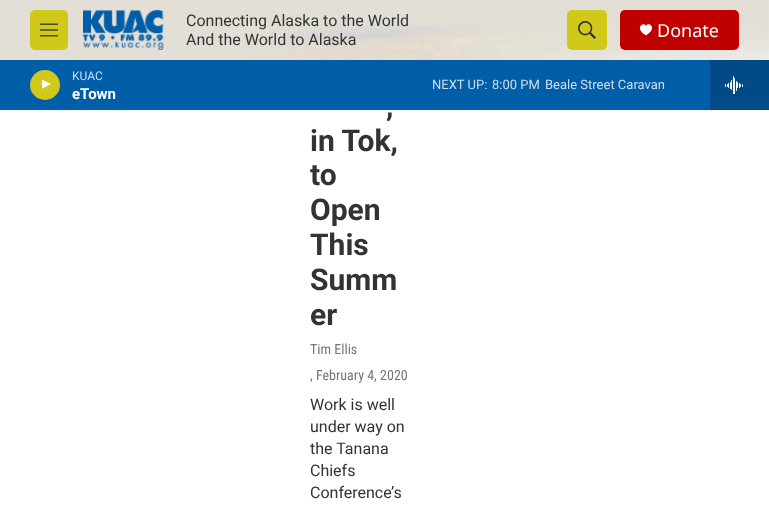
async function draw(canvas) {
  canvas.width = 769;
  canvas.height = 511;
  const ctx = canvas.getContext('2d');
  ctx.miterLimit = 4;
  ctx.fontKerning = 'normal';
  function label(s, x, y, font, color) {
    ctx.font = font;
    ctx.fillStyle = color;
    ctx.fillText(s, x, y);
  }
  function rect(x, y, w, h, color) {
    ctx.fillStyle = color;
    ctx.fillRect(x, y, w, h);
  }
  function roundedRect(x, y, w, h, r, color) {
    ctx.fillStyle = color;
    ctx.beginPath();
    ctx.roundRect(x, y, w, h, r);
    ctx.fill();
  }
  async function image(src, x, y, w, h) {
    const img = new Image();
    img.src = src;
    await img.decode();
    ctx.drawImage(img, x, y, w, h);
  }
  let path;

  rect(0, 0, 769, 511, '#fff');
  rect(0, 110, 769, 1, '#f5f5f5');
  await image('assets/img1.png', 0, 0, 769, 60);
  roundedRect(30, 10, 38, 40, 5, '#d0c91a');
  await image('assets/img2.png', 40, 23, 18, 14);
  await image('assets/img3.png', 83, 10, 81, 40);
  label('Connecting Alaska to the World', 186, 26, '16px Roboto', '#333');
  label('And the World to Alaska', 186, 45, '16px Roboto', '#333');
  roundedRect(567, 10, 40, 40, 5, '#d0c91a');
  await image('assets/img4.png', 578, 21, 18, 18);
  roundedRect(620, 10, 119, 40, 5, '#c00000');
  ctx.fillStyle = '#fff';
  path = new Path2D('M646 26C644 21 633.5 28 646 35.5C658.5 28 648 21 646 26Z');
  ctx.fill(path);
  label('Donate', 657, 37, '18px Noto Sans', '#fff');
  rect(0, 60, 710, 50, '#005ea9');
  ctx.fillStyle = '#d0c91a';
  ctx.beginPath();
  ctx.arc(45, 85, 15, 0, 2 * Math.PI);
  ctx.fill();
  ctx.save();
  ctx.beginPath();
  ctx.rect(42, 78, 12, 15);
  ctx.clip();
  ctx.fillStyle = '#fff';
  path = new Path2D('M41.5 79.5L51 84L41.5 89Z');
  ctx.fill(path);
  ctx.restore();
  label('KUAC', 72, 80, '12px Roboto', '#ccdfee');
  label('eTown', 72, 99, 'bold 15px "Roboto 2"', '#fff');
  label('NEXT UP:', 432, 89, '13px Roboto', '#ccdfee');
  label('8:00 PM', 492, 89, '13px Roboto', '#ccdfee');
  label('Beale Street Caravan', 545, 89, '13px Roboto', '#ccdfee');
  rect(710, 60, 59, 50, '#004b87');
  await image('assets/img5.png', 725, 76, 18, 18);
  label(',', 386, 116, 'bold 30px Roboto', '#333');
  label('in Tok,', 310, 151, 'bold 30px Roboto', '#333');
  label('to', 310, 185, 'bold 30px Roboto', '#333');
  label('Open', 310, 220, 'bold 30px Roboto', '#333');
  label('This', 310, 255, 'bold 30px Roboto', '#333');
  label('Summ', 310, 290, 'bold 30px Roboto', '#333');
  label('er', 310, 325, 'bold 30px Roboto', '#333');
  label('Tim Ellis', 310, 354, '14px Roboto Condensed', '#767676');
  label(', February 4, 2020', 310, 380, '14px Roboto Condensed', '#767676');
  label('Work is well', 310, 410, '16px Roboto', '#333');
  label('under way on', 310, 432, '16px Roboto', '#333');
  label('the Tanana', 310, 454, '16px Roboto', '#333');
  label('Chiefs', 310, 476, '16px Roboto', '#333');
  label('Conference’s', 310, 498, '16px Roboto', '#333');
}

draw(document.querySelector('canvas'));
